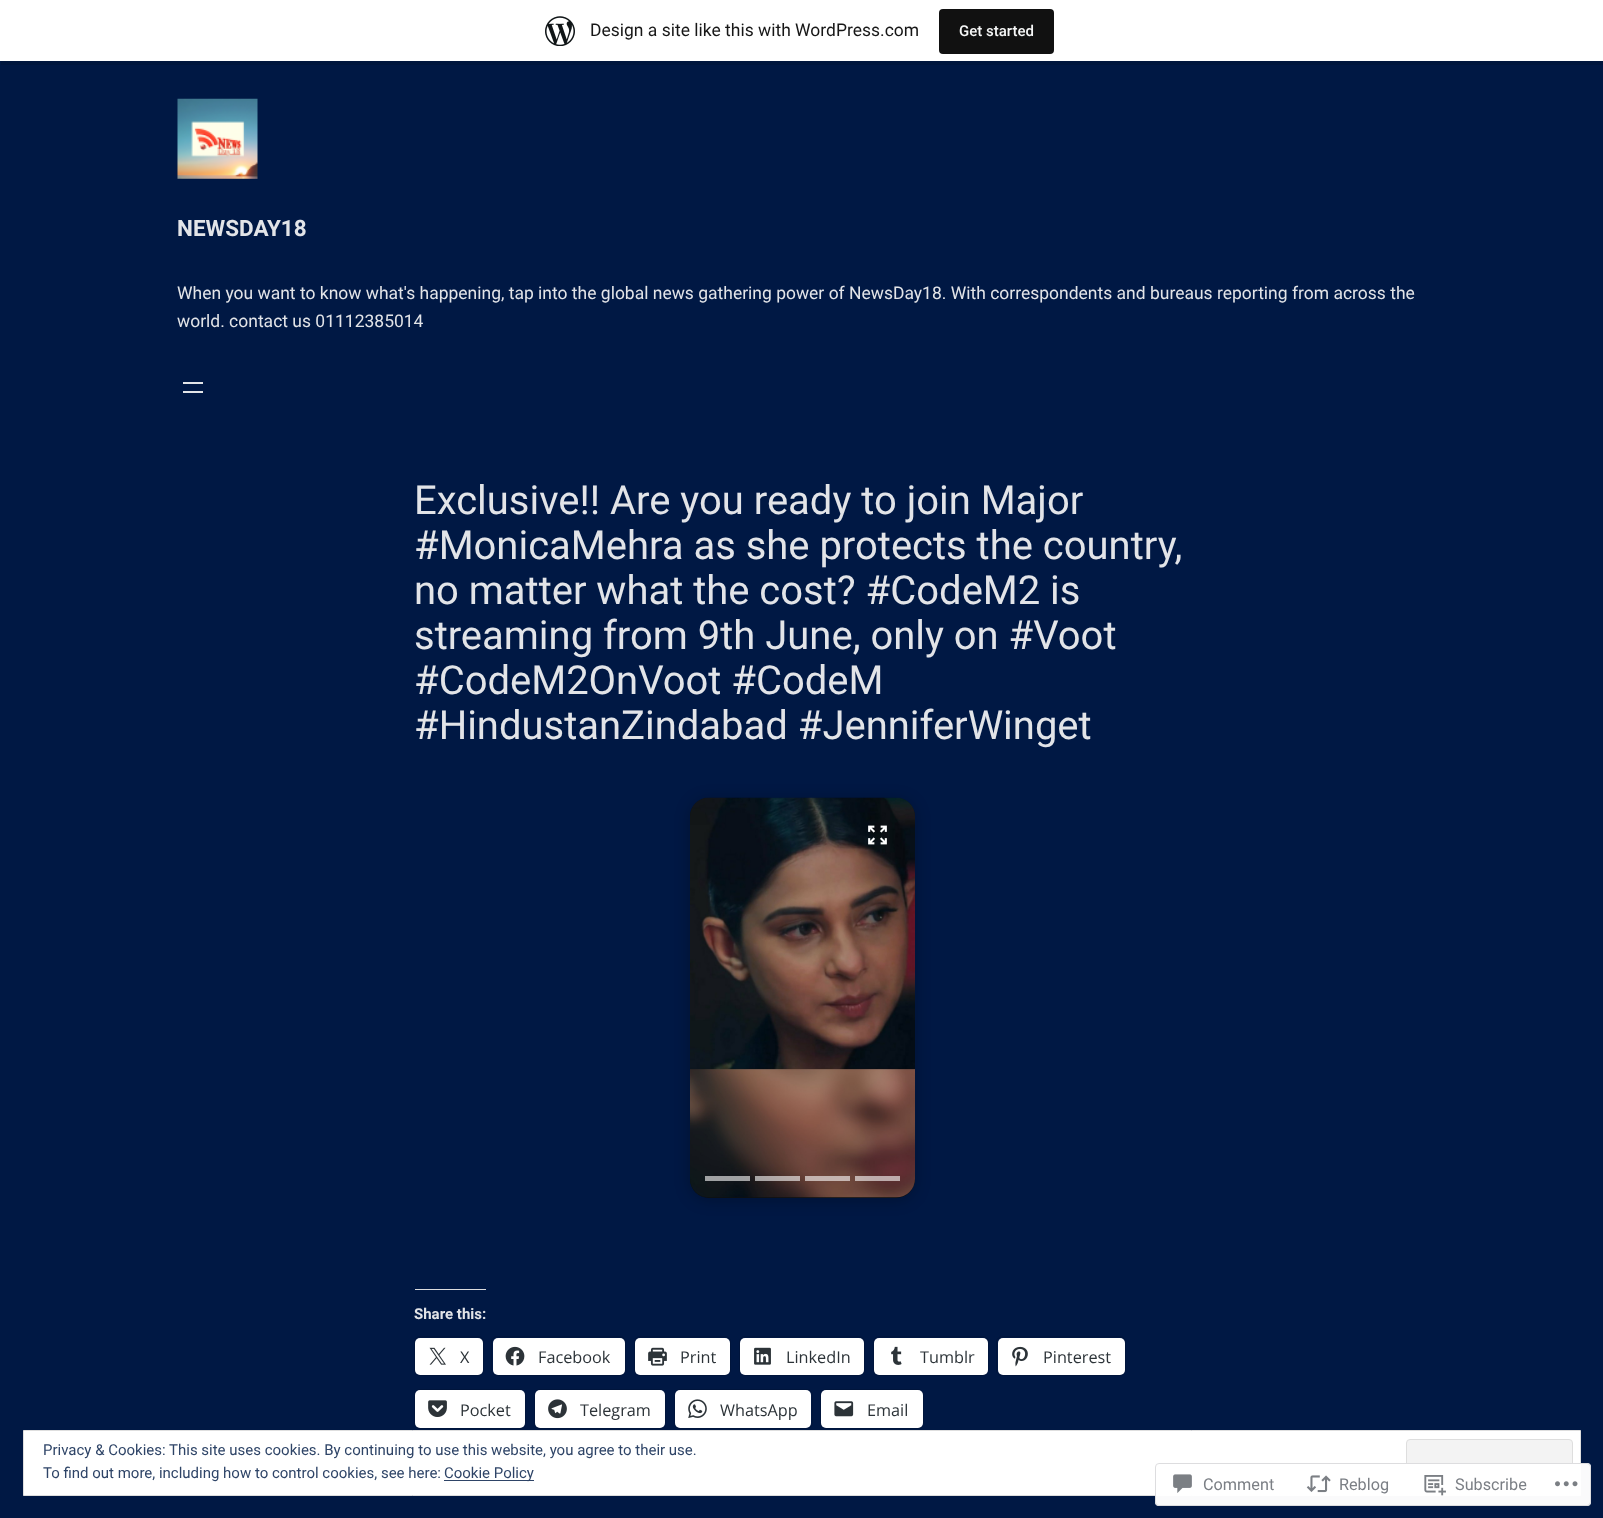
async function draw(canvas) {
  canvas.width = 1603;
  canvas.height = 1518;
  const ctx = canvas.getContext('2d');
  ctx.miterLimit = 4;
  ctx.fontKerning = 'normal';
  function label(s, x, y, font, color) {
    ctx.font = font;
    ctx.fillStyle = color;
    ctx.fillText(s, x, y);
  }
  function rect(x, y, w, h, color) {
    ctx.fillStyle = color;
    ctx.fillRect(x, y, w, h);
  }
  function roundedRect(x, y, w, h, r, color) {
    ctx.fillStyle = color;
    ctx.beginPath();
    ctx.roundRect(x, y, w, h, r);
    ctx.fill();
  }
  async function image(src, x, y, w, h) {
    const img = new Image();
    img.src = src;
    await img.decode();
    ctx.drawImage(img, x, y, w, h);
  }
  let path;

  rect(0, 0, 1603, 1518, '#001844');
  ctx.fillStyle = '#00163d';
  path = new Path2D('M1 61V65H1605V4H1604V61Z');
  ctx.fill(path);
  rect(0, 0, 1603, 61, '#fff');
  await image('assets/img1.png', 545, 16, 30, 30);
  label('Design a site like this with WordPress.com', 590, 36, '17.5px Roboto', '#171717');
  roundedRect(939, 9, 115, 45, 4, '#111');
  label('Get started', 959, 36, '500 15px Roboto', '#f6f7f7');
  await image('assets/img2.png', 177, 98, 81, 81);
  label('NEWSDAY18', 177, 236, 'bold 22.5px Roboto', '#e2e4e8');
  label('When you want to know what\'s happening, tap into the global news gathering power of NewsDay18. With correspondents and bureaus reporting from across the', 177, 299, '17.5px Roboto', '#e2e4e8');
  label('world. contact us 01112385014', 177, 327, '17.5px Roboto', '#e2e4e8');
  rect(183, 382, 20, 2, '#e2e4e8');
  rect(183, 391, 20, 2, '#e2e4e8');
  label('Exclusive!! Are you ready to join Major', 414, 514, '40px Roboto', '#e2e4e8');
  label('#MonicaMehra as she protects the country,', 414, 559, '40px Roboto', '#e2e4e8');
  label('no matter what the cost? #CodeM2 is', 414, 604, '40px Roboto', '#e2e4e8');
  label('streaming from 9th June, only on #Voot', 414, 649, '40px Roboto', '#e2e4e8');
  label('#CodeM2OnVoot #CodeM', 414, 694, '40px Roboto', '#e2e4e8');
  label('#HindustanZindabad #JenniferWinget', 414, 739, '40px Roboto', '#e2e4e8');
  ctx.fillStyle = '#00000040';
  ctx.filter = 'blur(7.5px)';
  ctx.beginPath();
  ctx.roundRect(690, 800, 225, 400, 19);
  ctx.fill();
  ctx.filter = 'none';
  roundedRect(690, 798, 225, 400, 19, '#0e1112');
  await image('assets/img3.png', 690, 797, 225, 401);
  await image('assets/img4.png', 868, 825, 19, 20);
  rect(705, 1176, 45, 5, '#ffffff99');
  rect(755, 1176, 45, 5, '#ffffff99');
  rect(805, 1176, 45, 5, '#ffffff99');
  rect(855, 1176, 45, 5, '#ffffff99');
  rect(415, 1289, 71, 1, '#dcdcde');
  label('Share this:', 414, 1319, 'bold 15px Roboto', '#e2e4e8');
  ctx.beginPath();
  ctx.roundRect(414.5, 1336.5, 69, 39, 5.5);
  ctx.strokeStyle = '#00153c';
  ctx.stroke();
  roundedRect(415, 1338, 68, 37, 5, '#fff');
  await image('assets/img5.png', 429, 1347, 17, 18);
  label('X', 460, 1363, '16.25px Open Sans', '#2c3338');
  ctx.beginPath();
  ctx.roundRect(491.5, 1336.5, 134, 39, 5.5);
  ctx.stroke();
  roundedRect(493, 1338, 132, 37, 5, '#fff');
  await image('assets/img6.png', 505, 1346, 20, 20);
  label('Facebook', 538, 1363, '16.25px Open Sans', '#2c3338');
  ctx.beginPath();
  ctx.roundRect(634.5, 1336.5, 96, 39, 5.5);
  ctx.stroke();
  roundedRect(635, 1338, 95, 37, 5, '#fff');
  await image('assets/img7.png', 648, 1347, 19, 19);
  label('Print', 680, 1363, '16.25px Open Sans', '#2c3338');
  ctx.beginPath();
  ctx.roundRect(739.5, 1336.5, 125, 39, 5.5);
  ctx.stroke();
  roundedRect(740, 1338, 124, 37, 5, '#fff');
  await image('assets/img8.png', 754, 1347, 17, 18);
  label('LinkedIn', 786, 1363, '16.25px Open Sans', '#2c3338');
  ctx.beginPath();
  ctx.roundRect(873.5, 1336.5, 115, 39, 5.5);
  ctx.stroke();
  roundedRect(874, 1338, 114, 37, 5, '#fff');
  await image('assets/img9.png', 891, 1346, 11, 19);
  label('Tumblr', 920, 1363, '16.25px Open Sans', '#2c3338');
  ctx.beginPath();
  ctx.roundRect(996.5, 1336.5, 129, 39, 5.5);
  ctx.stroke();
  roundedRect(998, 1338, 127, 37, 5, '#fff');
  await image('assets/img10.png', 1012, 1346, 16, 21);
  label('Pinterest', 1043, 1363, '16.25px Open Sans', '#2c3338');
  ctx.beginPath();
  ctx.roundRect(414.5, 1389.5, 111, 39, 5.5);
  ctx.stroke();
  roundedRect(415, 1390, 110, 38, 5, '#fff');
  await image('assets/img11.png', 428, 1400, 19, 17);
  label('Pocket', 460, 1416, '16.25px Open Sans', '#2c3338');
  ctx.beginPath();
  ctx.roundRect(534.5, 1389.5, 131, 39, 5.5);
  ctx.stroke();
  roundedRect(535, 1390, 130, 38, 5, '#fff');
  await image('assets/img12.png', 548, 1399, 19, 20);
  label('Telegram', 580, 1416, '16.25px Open Sans', '#2c3338');
  ctx.beginPath();
  ctx.roundRect(674.5, 1389.5, 138, 39, 5.5);
  ctx.stroke();
  roundedRect(675, 1390, 136, 38, 5, '#fff');
  await image('assets/img13.png', 688, 1399, 19, 19);
  label('WhatsApp', 720, 1416, '16.25px Open Sans', '#2c3338');
  ctx.beginPath();
  ctx.roundRect(820.5, 1389.5, 103, 39, 5.5);
  ctx.stroke();
  roundedRect(821, 1390, 102, 38, 5, '#fff');
  await image('assets/img14.png', 834, 1401, 20, 16);
  label('Email', 867, 1416, '16.25px Open Sans', '#2c3338');
  ctx.fillStyle = '#fff';
  ctx.beginPath();
  ctx.rect(23.5, 1430.5, 1557, 65);
  ctx.fill();
  ctx.strokeStyle = '#dedede';
  ctx.stroke();
  label('Privacy & Cookies: This site uses cookies. By continuing to use this website, you agree to their use.', 43, 1455, '15px Roboto', '#2e4467');
  ctx.fillStyle = '#f3f3f3';
  ctx.beginPath();
  ctx.roundRect(1406.5, 1439.5, 166, 48, 3.5);
  ctx.fill();
  ctx.stroke();
  label('To find out more, including how to control cookies, see here:', 43, 1478, '15px Roboto', '#2e4467');
  rect(444, 1480, 90, 1, '#2e4467');
  label('Cookie Policy', 444, 1478, '15px Roboto', '#2e4467');
  roundedRect(1155, 1463, 436, 43, 4, '#fffffffa');
  ctx.beginPath();
  ctx.roundRect(1155.5, 1463.5, 435, 42, 3.5);
  ctx.strokeStyle = '#dcdcdefa';
  ctx.stroke();
  await image('assets/img15.png', 1173, 1474, 19, 19);
  label('Comment', 1203, 1490, '16.25px Roboto', '#7b7f85');
  await image('assets/img16.png', 1306, 1475, 25, 18);
  label('Reblog', 1339, 1490, '16.25px Roboto', '#7b7f85');
  await image('assets/img17.png', 1424, 1475, 22, 21);
  label('Subscribe', 1455, 1490, '16.25px Roboto', '#7b7f85');
  await image('assets/img18.png', 1555, 1481, 23, 6);
}

draw(document.querySelector('canvas'));
